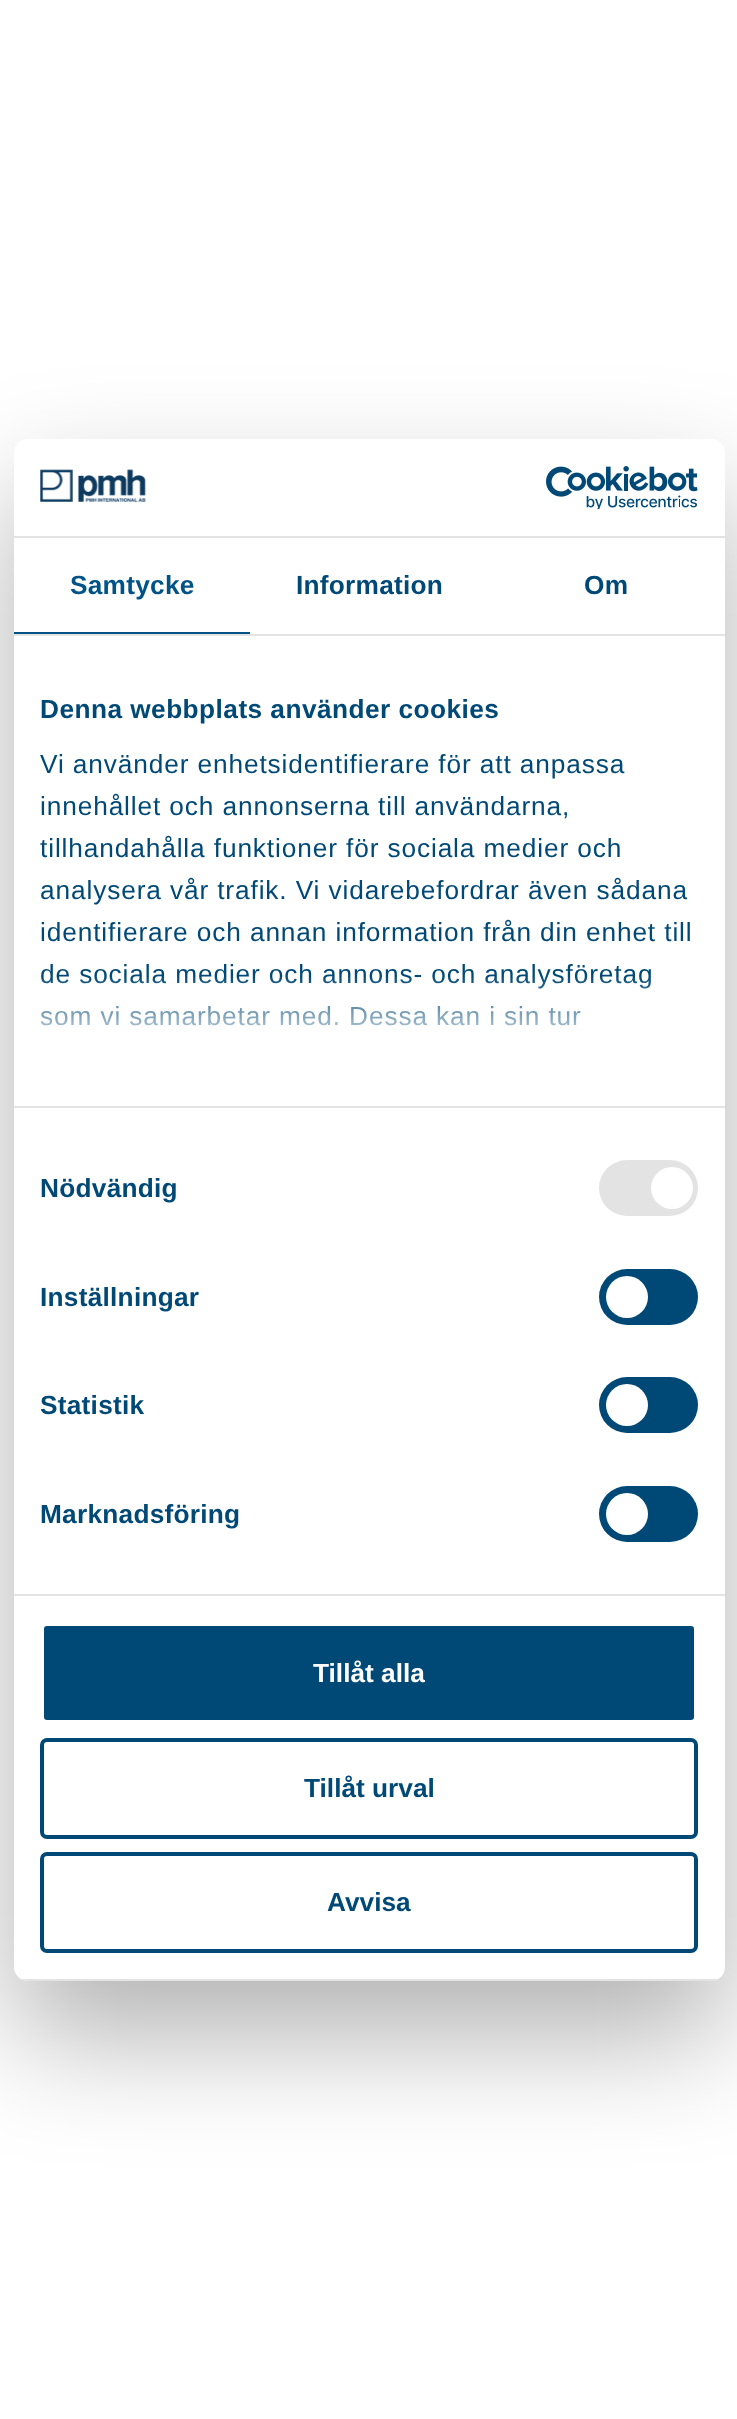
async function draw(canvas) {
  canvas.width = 737;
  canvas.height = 2419;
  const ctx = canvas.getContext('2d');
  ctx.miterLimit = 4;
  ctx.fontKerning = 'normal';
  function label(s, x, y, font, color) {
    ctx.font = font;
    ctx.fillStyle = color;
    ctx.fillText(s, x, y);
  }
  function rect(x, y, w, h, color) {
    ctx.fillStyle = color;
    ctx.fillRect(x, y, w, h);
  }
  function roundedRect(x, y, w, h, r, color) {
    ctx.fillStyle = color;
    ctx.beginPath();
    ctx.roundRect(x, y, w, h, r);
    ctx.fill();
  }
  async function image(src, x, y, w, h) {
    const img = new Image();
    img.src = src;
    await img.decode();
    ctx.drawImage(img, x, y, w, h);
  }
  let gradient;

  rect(0, 0, 737, 2419, '#fff');
  ctx.fillStyle = '#0000004d';
  ctx.filter = 'blur(59.5px)';
  ctx.beginPath();
  ctx.roundRect(14, 495, 711, 1542, 14);
  ctx.fill();
  ctx.filter = 'none';
  roundedRect(14, 439, 711, 1542, 14, '#fff');
  rect(14, 536, 711, 2, '#e3e3e3');
  await image('assets/img1.png', 40, 469, 106, 33);
  await image('assets/img2.png', 546, 466, 152, 43);
  rect(14, 634, 711, 2, '#e3e3e3');
  rect(14, 632, 236, 2, '#005387');
  ctx.letterSpacing = '0.25px';
  label('Samtycke', 70, 594, 'bold 26.25px Liberation Sans', '#005387');
  label('Information', 296, 594, 'bold 26.25px Liberation Sans', '#004977');
  label('Om', 584, 594, 'bold 26.25px Liberation Sans', '#004977');
  rect(14, 1106, 711, 2, '#e3e3e3');
  ctx.letterSpacing = '0.45px';
  label('Denna webbplats använder cookies', 40, 718, 'bold 26.25px Liberation Sans', '#004977');
  ctx.letterSpacing = '0.88px';
  label('Vi använder enhetsidentifierare för att anpassa', 40, 773, '26.25px Liberation Sans', '#004977');
  label('innehållet och annonserna till användarna,', 40, 815, '26.25px Liberation Sans', '#004977');
  label('tillhandahålla funktioner för sociala medier och', 40, 857, '26.25px Liberation Sans', '#004977');
  label('analysera vår trafik. Vi vidarebefordrar även sådana', 40, 899, '26.25px Liberation Sans', '#004977');
  label('identifierare och annan information från din enhet till', 40, 941, '26.25px Liberation Sans', '#004977');
  label('de sociala medier och annons- och analysföretag', 40, 983, '26.25px Liberation Sans', '#004977');
  label('som vi samarbetar med. Dessa kan i sin tur', 40, 1025, '26.25px Liberation Sans', '#004977');
  gradient = ctx.createLinearGradient(358, 1106, 358, 975);
  gradient.addColorStop(0, '#fff');
  gradient.addColorStop(0.5, '#ffffffcc');
  gradient.addColorStop(1, '#ffffff00');
  ctx.fillStyle = gradient;
  ctx.fillRect(41, 977, 610, 49);
  rect(14, 1594, 711, 2, '#e3e3e3');
  ctx.letterSpacing = '0.25px';
  label('Nödvändig', 40, 1197, 'bold 26.25px Liberation Sans', '#004977');
  roundedRect(599, 1160, 99, 56, 28, '#e3e3e3');
  ctx.fillStyle = '#fff';
  ctx.beginPath();
  ctx.arc(672, 1188, 21, 0, 2 * Math.PI);
  ctx.fill();
  label('Inställningar', 40, 1306, 'bold 26.25px Liberation Sans', '#004977');
  roundedRect(599, 1269, 99, 56, 28, '#004977');
  ctx.fillStyle = '#fff';
  ctx.beginPath();
  ctx.arc(627, 1297, 21, 0, 2 * Math.PI);
  ctx.fill();
  label('Statistik', 40, 1414, 'bold 26.25px Liberation Sans', '#004977');
  roundedRect(599, 1377, 99, 56, 28, '#004977');
  ctx.fillStyle = '#fff';
  ctx.beginPath();
  ctx.arc(627, 1405, 21, 0, 2 * Math.PI);
  ctx.fill();
  label('Marknadsföring', 40, 1523, 'bold 26.25px Liberation Sans', '#004977');
  roundedRect(599, 1486, 99, 56, 28, '#004977');
  ctx.fillStyle = '#fff';
  ctx.beginPath();
  ctx.arc(627, 1514, 21, 0, 2 * Math.PI);
  ctx.fill();
  ctx.save();
  ctx.beginPath();
  ctx.roundRect(14, 439, 711, 1542, 14);
  ctx.clip();
  rect(14, 1979, 711, 2, '#e3e3e3');
  ctx.restore();
  ctx.fillStyle = '#004977';
  ctx.beginPath();
  ctx.roundRect(42, 1624, 654, 98, 5);
  ctx.fill();
  ctx.strokeStyle = '#fff';
  ctx.lineWidth = 4;
  ctx.stroke();
  ctx.letterSpacing = '0px';
  label('Tillåt alla', 313, 1682, 'bold 26.25px Liberation Sans', '#fff');
  ctx.beginPath();
  ctx.roundRect(42, 1740, 654, 97, 5);
  ctx.strokeStyle = '#004977';
  ctx.stroke();
  label('Tillåt urval', 304, 1797, 'bold 26.25px Liberation Sans', '#004977');
  ctx.beginPath();
  ctx.roundRect(42, 1854, 654, 97, 5);
  ctx.stroke();
  label('Avvisa', 327, 1911, 'bold 26.25px Liberation Sans', '#004977');
}

draw(document.querySelector('canvas'));
